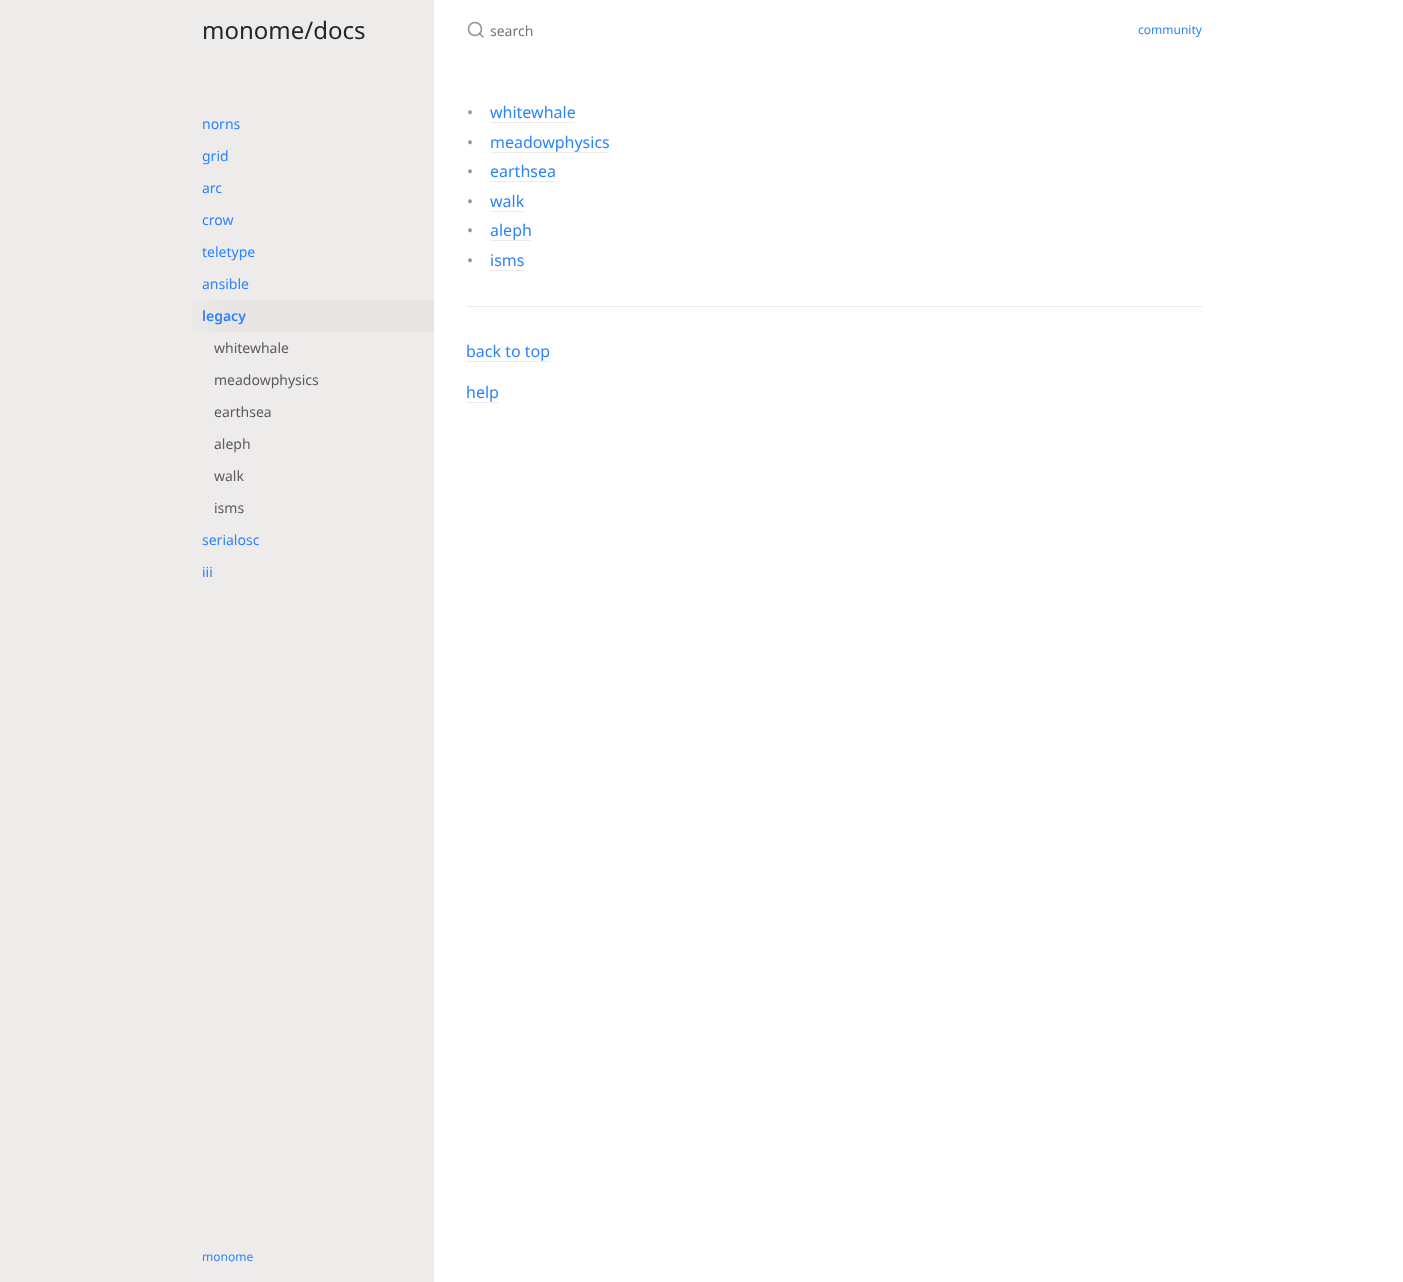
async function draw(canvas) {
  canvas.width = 1403;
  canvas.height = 1282;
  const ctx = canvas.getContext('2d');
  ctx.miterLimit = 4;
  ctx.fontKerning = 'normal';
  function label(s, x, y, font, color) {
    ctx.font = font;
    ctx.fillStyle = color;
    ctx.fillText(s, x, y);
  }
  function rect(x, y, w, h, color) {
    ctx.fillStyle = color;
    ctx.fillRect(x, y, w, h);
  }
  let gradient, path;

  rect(0, 0, 1403, 1282, '#fff');
  rect(0, 0, 434, 1282, '#eeeceb');
  label('monome/docs', 202, 39, '24px Noto Sans', '#27262b');
  label('norns', 202, 129, '14px Noto Sans', '#2c84fa');
  label('grid', 202, 161, '14px Noto Sans', '#2c84fa');
  label('arc', 202, 193, '14px Noto Sans', '#2c84fa');
  label('crow', 202, 225, '14px Noto Sans', '#2c84fa');
  label('teletype', 202, 257, '14px Noto Sans', '#2c84fa');
  label('ansible', 202, 289, '14px Noto Sans', '#2c84fa');
  gradient = ctx.createLinearGradient(434, 316, 170, 316);
  gradient.addColorStop(0, '#e7e4e3');
  gradient.addColorStop(0.8, '#e8e6e5');
  gradient.addColorStop(1, '#eeeceb');
  ctx.fillStyle = gradient;
  ctx.fillRect(192, 300, 242, 32);
  label('legacy', 202, 321, '600 14px Noto Sans', '#2c84fa');
  label('whitewhale', 214, 353, '14px Noto Sans', '#5c5962');
  label('meadowphysics', 214, 385, '14px Noto Sans', '#5c5962');
  label('earthsea', 214, 417, '14px Noto Sans', '#5c5962');
  label('aleph', 214, 449, '14px Noto Sans', '#5c5962');
  label('walk', 214, 481, '14px Noto Sans', '#5c5962');
  label('isms', 214, 513, '14px Noto Sans', '#5c5962');
  label('serialosc', 202, 545, '14px Noto Sans', '#2c84fa');
  label('iii', 202, 577, '14px Noto Sans', '#2c84fa');
  label('monome', 202, 1261, '12px Noto Sans', '#2c84fa');
  rect(202, 1264, 51, 1, '#eeebee');
  ctx.beginPath();
  ctx.arc(475, 29, 6.5, 0, 2 * Math.PI);
  ctx.strokeStyle = '#959396';
  ctx.lineWidth = 1.6;
  ctx.stroke();
  path = new Path2D('M483 37L479.5 33.5');
  ctx.lineCap = 'round';
  ctx.lineJoin = 'round';
  ctx.stroke(path);
  label('search', 490, 36, '14px Noto Sans', '#757575');
  label('community', 1138, 34, '12px Noto Sans', '#2c84fa');
  label('•', 467, 118, '16px Noto Sans', '#959396');
  label('whitewhale', 490, 118, '16px Noto Sans', '#2c84fa');
  rect(490, 122, 85, 1, '#eeebee');
  label('•', 467, 148, '16px Noto Sans', '#959396');
  label('meadowphysics', 490, 148, '16px Noto Sans', '#2c84fa');
  rect(490, 152, 119, 1, '#eeebee');
  label('•', 467, 177, '16px Noto Sans', '#959396');
  label('earthsea', 490, 177, '16px Noto Sans', '#2c84fa');
  rect(490, 181, 65, 1, '#eeebee');
  label('•', 467, 207, '16px Noto Sans', '#959396');
  label('walk', 490, 207, '16px Noto Sans', '#2c84fa');
  rect(490, 211, 34, 1, '#eeebee');
  label('•', 467, 236, '16px Noto Sans', '#959396');
  label('aleph', 490, 236, '16px Noto Sans', '#2c84fa');
  rect(490, 240, 41, 1, '#eeebee');
  label('•', 467, 266, '16px Noto Sans', '#959396');
  label('isms', 490, 266, '16px Noto Sans', '#2c84fa');
  rect(490, 270, 34, 1, '#eeebee');
  rect(466, 306, 736, 1, '#eeebee');
  label('back to top', 466, 357, '16px Noto Sans', '#2c84fa');
  rect(466, 361, 84, 1, '#eeebee');
  label('help', 466, 398, '16px Noto Sans', '#2c84fa');
  rect(466, 402, 32, 1, '#eeebee');
}

draw(document.querySelector('canvas'));
